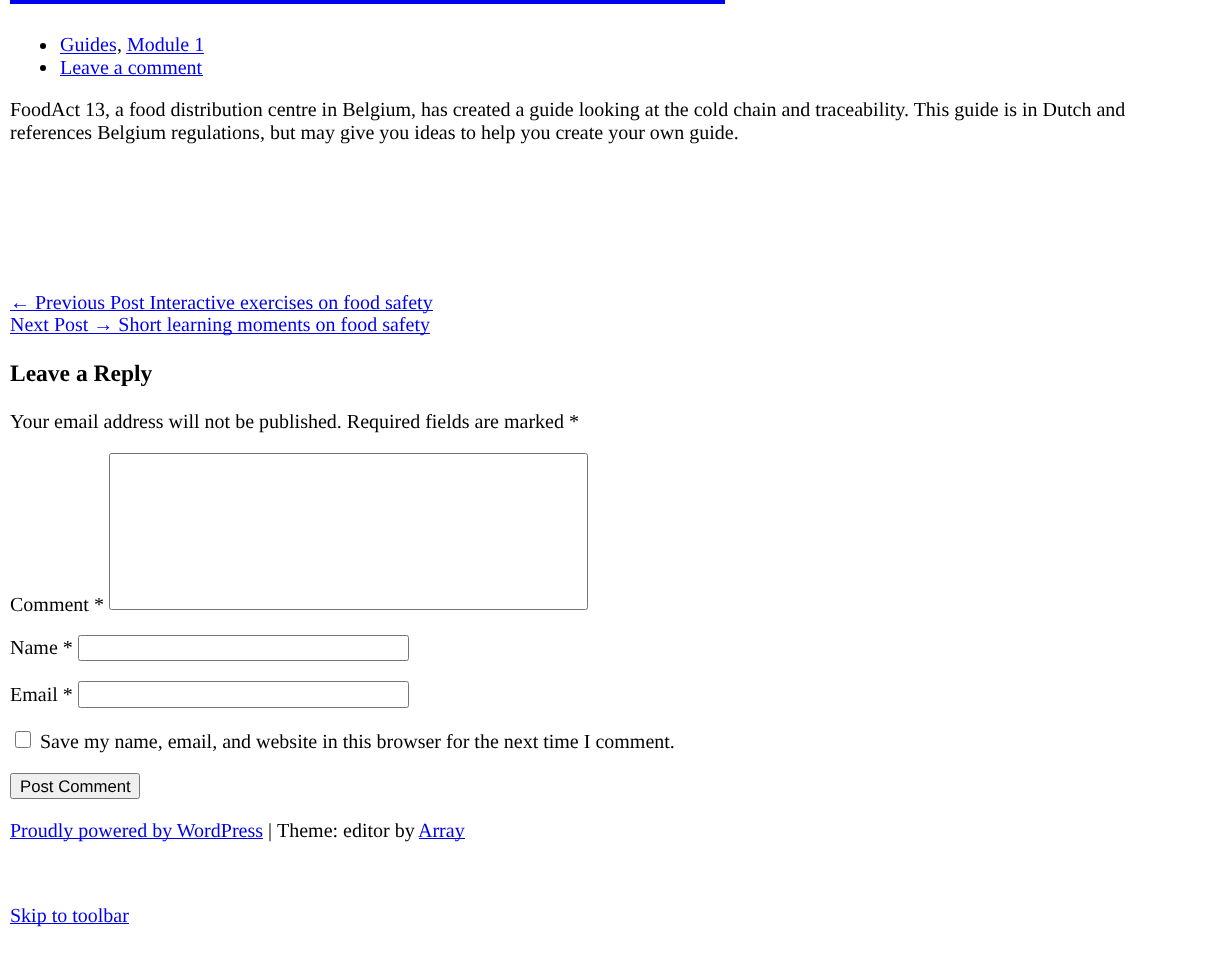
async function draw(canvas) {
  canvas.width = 1221;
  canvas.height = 953;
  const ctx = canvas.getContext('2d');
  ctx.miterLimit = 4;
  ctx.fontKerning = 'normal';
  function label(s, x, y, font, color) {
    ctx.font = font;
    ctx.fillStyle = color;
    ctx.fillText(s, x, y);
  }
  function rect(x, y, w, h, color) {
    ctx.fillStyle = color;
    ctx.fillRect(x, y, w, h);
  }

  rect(0, 0, 1221, 953, '#fff');
  rect(10, 0, 715, 4, '#00e');
  ctx.fillStyle = '#000';
  ctx.beginPath();
  ctx.arc(43, 46, 3, 0, 2 * Math.PI);
  ctx.fill();
  label('Guides', 60, 51, '20px Liberation Serif', '#00e');
  rect(60, 53, 56, 1, '#00e');
  label('Module 1', 127, 51, '20px Liberation Serif', '#00e');
  rect(126, 53, 78, 1, '#00e');
  label(',', 117, 51, '20px Liberation Serif', '#000');
  ctx.beginPath();
  ctx.arc(43, 68, 3, 0, 2 * Math.PI);
  ctx.fill();
  label('Leave a comment', 60, 74, '20px Liberation Serif', '#00e');
  rect(60, 75, 143, 1, '#00e');
  label('FoodAct 13, a food distribution centre in Belgium, has created a guide looking at the cold chain and traceability. This guide is in Dutch and', 10, 116, '20px Liberation Serif', '#000');
  label('references Belgium regulations, but may give you ideas to help you create your own guide.', 10, 139, '20px Liberation Serif', '#000');
  rect(10, 310, 423, 1, '#00e');
  label('← Previous Post Interactive exercises on food safety', 10, 309, '20px Liberation Serif', '#00e');
  rect(10, 333, 420, 1, '#00e');
  label('Next Post → Short learning moments on food safety', 10, 331, '20px Liberation Serif', '#00e');
  label('Leave a Reply', 10, 381, 'bold 23.5px Liberation Serif', '#000');
  label('Your email address will not be published. Required fields are marked *', 10, 428, '20px Liberation Serif', '#000');
  label('Comment *', 10, 611, '20px Liberation Serif', '#000');
  ctx.beginPath();
  ctx.roundRect(109.5, 453.5, 478, 156, 2);
  ctx.strokeStyle = '#767676';
  ctx.stroke();
  label('Name *', 10, 654, '20px Liberation Serif', '#000');
  ctx.beginPath();
  ctx.roundRect(78.5, 635.5, 330, 25, 2);
  ctx.stroke();
  label('Email *', 10, 701, '20px Liberation Serif', '#000');
  ctx.beginPath();
  ctx.roundRect(78.5, 681.5, 330, 26, 2);
  ctx.stroke();
  ctx.beginPath();
  ctx.roundRect(15.5, 731.5, 15, 16, 2);
  ctx.stroke();
  label('Save my name, email, and website in this browser for the next time I comment.', 40, 748, '20px Liberation Serif', '#000');
  ctx.fillStyle = '#efefef';
  ctx.beginPath();
  ctx.roundRect(10.5, 773.5, 129, 25, 2);
  ctx.fill();
  ctx.stroke();
  label('Post Comment', 20, 792, '16.75px Liberation Sans', '#000');
  rect(10, 838, 253, 1, '#00e');
  label('Proudly powered by WordPress', 10, 837, '20px Liberation Serif', '#00e');
  label('|', 268, 837, '20px Liberation Serif', '#000');
  label('Theme: editor by', 277, 837, '20px Liberation Serif', '#000');
  rect(419, 838, 46, 1, '#00e');
  label('Array', 418, 837, '20px Liberation Serif', '#00e');
  rect(10, 923, 119, 1, '#00e');
  label('Skip to toolbar', 10, 922, '20px Liberation Serif', '#00e');
}

draw(document.querySelector('canvas'));
